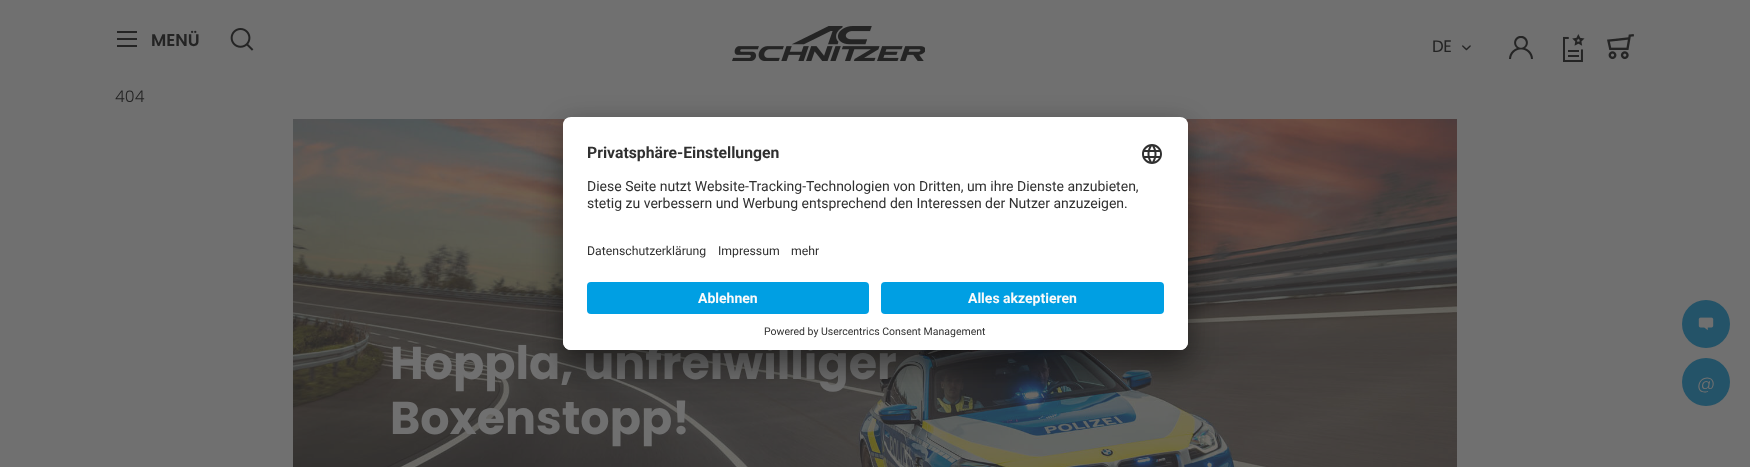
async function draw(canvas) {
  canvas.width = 1750;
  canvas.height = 467;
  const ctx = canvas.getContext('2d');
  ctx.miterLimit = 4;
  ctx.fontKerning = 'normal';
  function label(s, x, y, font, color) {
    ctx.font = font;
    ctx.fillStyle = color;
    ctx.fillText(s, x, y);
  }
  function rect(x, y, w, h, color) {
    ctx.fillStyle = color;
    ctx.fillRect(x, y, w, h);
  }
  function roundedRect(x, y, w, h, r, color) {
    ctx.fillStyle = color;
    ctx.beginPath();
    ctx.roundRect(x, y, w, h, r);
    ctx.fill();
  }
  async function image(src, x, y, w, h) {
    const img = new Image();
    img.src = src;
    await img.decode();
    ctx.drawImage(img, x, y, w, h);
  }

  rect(0, 0, 1750, 467, '#707070');
  rect(117, 31, 20, 2, '#242424');
  rect(117, 38, 20, 2, '#242424');
  rect(117, 45, 20, 2, '#242424');
  label('MENÜ', 151, 46, '600 17px Poppins', '#242424');
  await image('assets/img1.png', 230, 28, 24, 23);
  await image('assets/img2.png', 732, 26, 193, 35);
  label('DE', 1432, 52, 'bold 16px "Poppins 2"', '#242424');
  await image('assets/img3.png', 1462, 45, 9, 6);
  await image('assets/img4.png', 1509, 36, 24, 23);
  await image('assets/img5.png', 1563, 34, 22, 28);
  await image('assets/img6.png', 1607, 34, 27, 26);
  label('404', 115, 102, '300 16px Poppins', '#242424');
  await image('assets/img7.png', 293, 119, 1164, 348);
  label('Hoppla, unfreiwilliger', 390, 379, 'bold 46px Poppins', '#707070');
  label('Boxenstopp!', 390, 434, 'bold 46px Poppins', '#707070');
  ctx.fillStyle = '#0000004d';
  ctx.filter = 'blur(14px)';
  ctx.beginPath();
  ctx.roundRect(563, 137, 625, 233, 8);
  ctx.fill();
  ctx.filter = 'none';
  ctx.fillStyle = '#00000038';
  ctx.filter = 'blur(13px)';
  ctx.beginPath();
  ctx.roundRect(563, 122, 625, 233, 8);
  ctx.fill();
  ctx.filter = 'none';
  roundedRect(563, 117, 625, 233, 8, '#fff');
  ctx.save();
  ctx.beginPath();
  ctx.roundRect(563, 117, 625, 233, 8);
  ctx.clip();
  ctx.beginPath();
  ctx.roundRect(563, 117, 625, 157, [8, 8, 0, 0]);
  ctx.clip();
  rect(563, 118, 625, 156, '#fff');
  ctx.restore();
  label('Privatsphäre-Einstellungen', 587, 158, 'bold 15.75px Roboto', '#303030');
  await image('assets/img8.png', 1142, 144, 20, 20);
  label('Diese Seite nutzt Website-Tracking-Technologien von Dritten, um ihre Dienste anzubieten,', 587, 191, '14px Roboto', '#303030');
  label('stetig zu verbessern und Werbung entsprechend den Interessen der Nutzer anzuzeigen.', 587, 208, '14px Roboto', '#303030');
  label('Datenschutzerklärung', 587, 255, '12.25px Roboto', '#303030');
  label('Impressum', 718, 255, '12.25px Roboto', '#303030');
  label('mehr', 791, 255, '12.25px Roboto', '#303030');
  ctx.fillStyle = '#fff';
  ctx.beginPath();
  ctx.roundRect(563, 274, 625, 76, [0, 0, 8, 8]);
  ctx.fill();
  roundedRect(587, 282, 282, 32, 4, '#009fe3');
  label('Ablehnen', 698, 303, 'bold 14px Roboto', '#fafafa');
  roundedRect(881, 282, 283, 32, 4, '#009fe3');
  label('Alles akzeptieren', 968, 303, 'bold 14px Roboto', '#fafafa');
  label('Powered by Usercentrics Consent Management', 764, 335, '10.5px Roboto', '#303030');
  ctx.fillStyle = '#245368';
  ctx.beginPath();
  ctx.arc(1706, 324, 24, 0, 2 * Math.PI);
  ctx.fill();
  await image('assets/img9.png', 1698, 317, 16, 14);
  ctx.beginPath();
  ctx.arc(1706, 382, 24, 0, 2 * Math.PI);
  ctx.fill();
  label('@', 1697, 389, '300 18px Poppins', '#707070');
}

draw(document.querySelector('canvas'));
